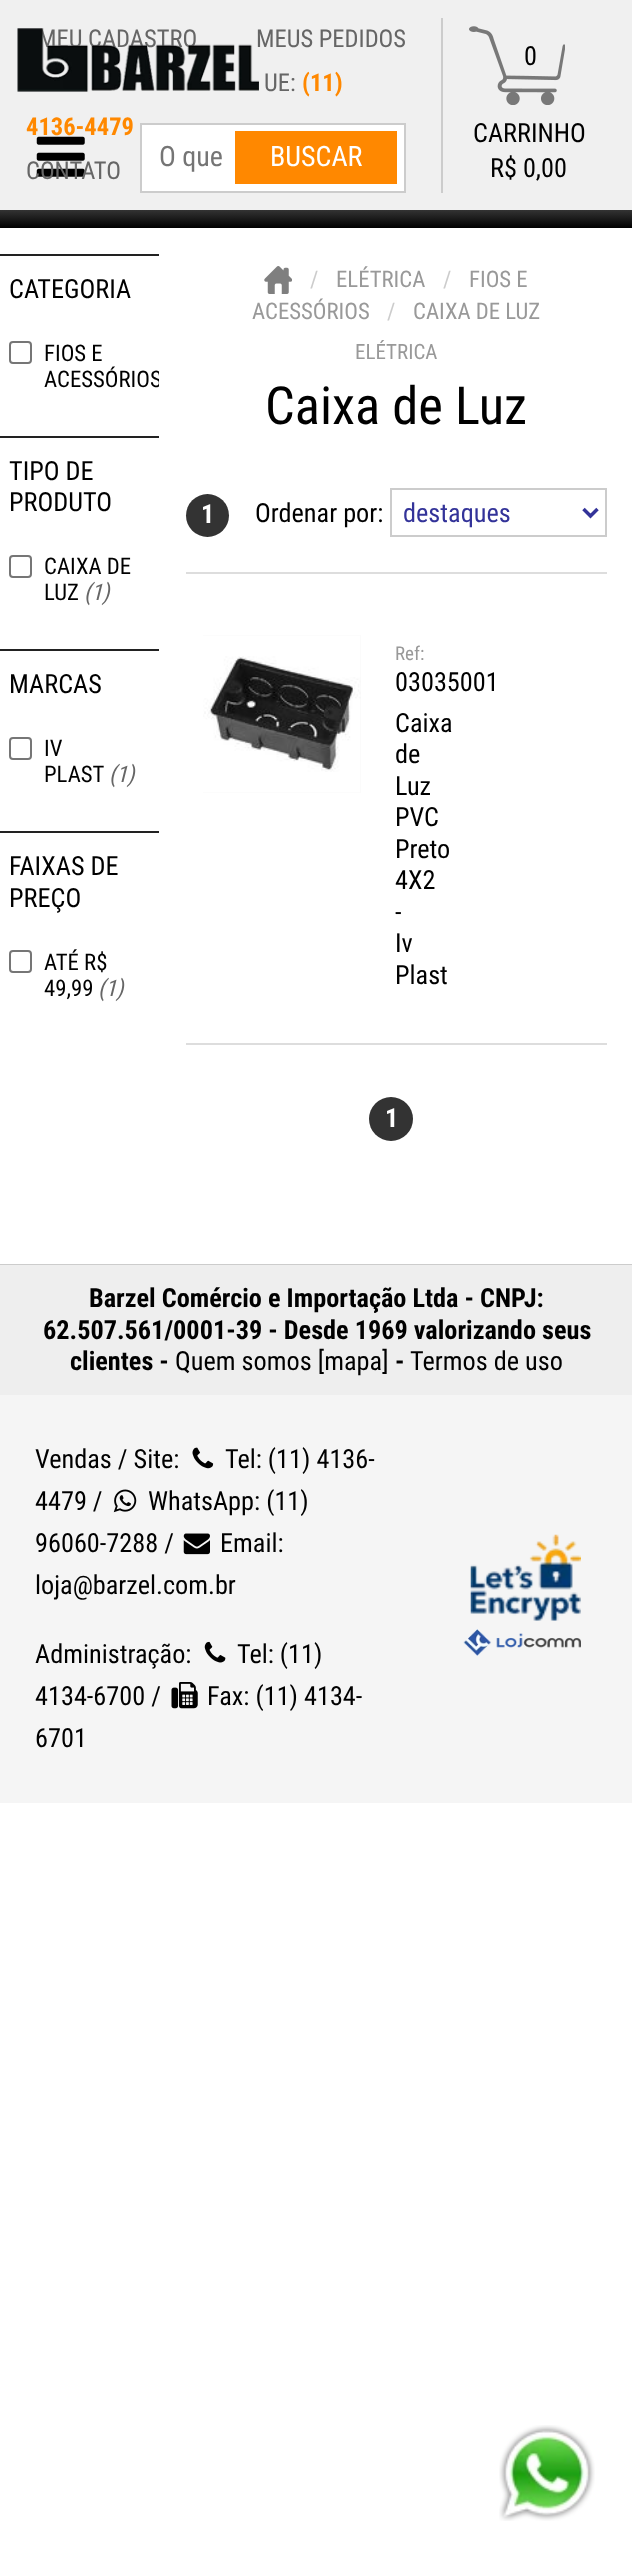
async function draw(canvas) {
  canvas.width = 632;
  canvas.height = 2560;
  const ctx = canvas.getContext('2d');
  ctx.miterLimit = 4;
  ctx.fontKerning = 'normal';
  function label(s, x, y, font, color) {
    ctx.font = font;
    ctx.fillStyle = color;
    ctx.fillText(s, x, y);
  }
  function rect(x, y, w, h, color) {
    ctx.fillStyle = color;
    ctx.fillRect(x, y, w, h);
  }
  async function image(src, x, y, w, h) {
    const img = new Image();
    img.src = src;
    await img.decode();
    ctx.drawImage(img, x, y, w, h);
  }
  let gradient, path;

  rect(0, 0, 632, 2560, '#fff');
  rect(0, 0, 632, 210, '#f0f0f0');
  label('MEU CADASTRO', 38, 47, '24.5px Roboto Condensed', '#666');
  label('MEUS PEDIDOS', 256, 47, '24.5px Roboto Condensed', '#666');
  await image('assets/img1.png', 17, 28, 242, 64);
  label('UE:', 264, 91, '24.5px Roboto Condensed', '#666');
  label('(11)', 302, 91, 'bold 24.5px Roboto Condensed', '#f80');
  label('4136-4479', 26, 135, 'bold 24.5px Roboto Condensed', '#f80');
  await image('assets/img3.png', 36, 136, 49, 41);
  label('CONTATO', 26, 179, '24.5px Roboto Condensed', '#666');
  await image('assets/img2.png', 469, 26, 96, 79);
  label('0', 524, 65, '26.25px Roboto Condensed', '#000');
  label('R$ 0,00', 490, 177, '26.25px Roboto Condensed', '#000');
  rect(441, 18, 2, 175, '#ccc');
  label('CARRINHO', 473, 142, '26.25px Roboto Condensed', '#000');
  ctx.fillStyle = '#fff';
  ctx.beginPath();
  ctx.rect(141, 124, 264, 68);
  ctx.fill();
  ctx.strokeStyle = '#ccc';
  ctx.lineWidth = 2;
  ctx.stroke();
  label('O que', 159, 166, '28px Roboto Condensed', '#757575');
  rect(235, 131, 162, 53, '#f80');
  label('BUSCAR', 270, 166, '28px Roboto Condensed', '#fff');
  rect(0, 254, 159, 2, '#222');
  label('CATEGORIA', 9, 298, '26.25px Roboto Condensed', '#000');
  ctx.beginPath();
  ctx.roundRect(10, 342, 21, 21, 3);
  ctx.strokeStyle = '#767676';
  ctx.stroke();
  label('FIOS E', 44, 361, '22.75px Roboto Condensed', '#000');
  ctx.save();
  ctx.beginPath();
  ctx.rect(0, 331, 159, 70);
  ctx.clip();
  label('ACESSÓRIOS', 44, 387, '22.75px Roboto Condensed', '#000');
  ctx.restore();
  rect(0, 436, 159, 2, '#222');
  label('TIPO DE', 9, 480, '26.25px Roboto Condensed', '#000');
  label('PRODUTO', 9, 511, '26.25px Roboto Condensed', '#000');
  ctx.beginPath();
  ctx.roundRect(10, 556, 21, 21, 3);
  ctx.stroke();
  label('CAIXA DE', 44, 574, '22.75px Roboto Condensed', '#000');
  label('LUZ', 44, 600, '22.75px Roboto Condensed', '#000');
  label('(1)', 84, 600, 'italic 22.75px Roboto Condensed', '#666');
  rect(0, 649, 159, 2, '#222');
  label('MARCAS', 9, 693, '26.25px Roboto Condensed', '#000');
  ctx.beginPath();
  ctx.roundRect(10, 738, 21, 21, 3);
  ctx.stroke();
  label('IV', 44, 756, '22.75px Roboto Condensed', '#000');
  label('PLAST', 44, 782, '22.75px Roboto Condensed', '#000');
  label('(1)', 109, 782, 'italic 22.75px Roboto Condensed', '#666');
  rect(0, 831, 159, 2, '#222');
  label('FAIXAS DE', 9, 875, '26.25px Roboto Condensed', '#000');
  label('PREÇO', 9, 907, '26.25px Roboto Condensed', '#000');
  ctx.beginPath();
  ctx.roundRect(10, 951, 21, 21, 3);
  ctx.stroke();
  label('ATÉ R$', 44, 970, '22.75px Roboto Condensed', '#000');
  label('49,99', 44, 996, '22.75px Roboto Condensed', '#000');
  label('(1)', 98, 996, 'italic 22.75px Roboto Condensed', '#666');
  await image('assets/img4.png', 264, 266, 28, 28);
  label('/', 310, 287, '22.75px Roboto Condensed', '#ccc');
  label('ELÉTRICA', 336, 287, '22.75px Roboto Condensed', '#999');
  label('/', 443, 287, '22.75px Roboto Condensed', '#ccc');
  label('FIOS E', 469, 287, '22.75px Roboto Condensed', '#999');
  label('ACESSÓRIOS', 252, 319, '22.75px Roboto Condensed', '#999');
  label('/', 387, 319, '22.75px Roboto Condensed', '#ccc');
  label('CAIXA DE LUZ', 413, 319, '22.75px Roboto Condensed', '#999');
  label('ELÉTRICA', 355, 359, '21px Roboto Condensed', '#999');
  label('Caixa de Luz', 265, 424, '52.5px Roboto Condensed', '#000');
  ctx.fillStyle = '#333';
  ctx.beginPath();
  ctx.arc(207.5, 515.5, 21.5, 0, 2 * Math.PI);
  ctx.fill();
  label('1', 201, 523, 'bold 26.25px Roboto Condensed', '#fff');
  label('Ordenar por:', 255, 522, '26.25px Roboto Condensed', '#000');
  ctx.strokeStyle = '#ccc';
  ctx.strokeRect(391, 489, 215, 47);
  path = new Path2D('M583.5 509L590.5 516L597.5 509');
  ctx.strokeStyle = '#339';
  ctx.lineWidth = 3.5;
  ctx.stroke(path);
  label('destaques', 403, 522, '26.25px Roboto Condensed', '#339');
  rect(186, 572, 421, 2, '#ddd');
  rect(186, 1043, 421, 2, '#ddd');
  await image('assets/img5.png', 203, 635, 158, 158);
  await image('assets/img6.png', 203, 635, 158, 158);
  label('Ref:', 395, 660, '19px Roboto Condensed', '#999');
  label('03035001', 395, 691, '26.25px Roboto Condensed', '#000');
  label('Caixa', 395, 732, '26.25px Roboto Condensed', '#000');
  label('de', 395, 763, '26.25px Roboto Condensed', '#000');
  label('Luz', 395, 795, '26.25px Roboto Condensed', '#000');
  label('PVC', 395, 826, '26.25px Roboto Condensed', '#000');
  label('Preto', 395, 858, '26.25px Roboto Condensed', '#000');
  label('4X2', 395, 889, '26.25px Roboto Condensed', '#000');
  label('-', 395, 921, '26.25px Roboto Condensed', '#000');
  label('Iv', 395, 952, '26.25px Roboto Condensed', '#000');
  label('Plast', 395, 984, '26.25px Roboto Condensed', '#000');
  ctx.fillStyle = '#333';
  ctx.beginPath();
  ctx.arc(391, 1119, 22, 0, 2 * Math.PI);
  ctx.fill();
  label('1', 385, 1127, 'bold 26.25px Roboto Condensed', '#fff');
  await image('assets/img7.png', 499, 2425, 96, 96);
  rect(0, 1395, 632, 408, '#f5f5f5');
  rect(0, 1264, 632, 1, '#ccc');
  rect(0, 1265, 632, 130, '#eee');
  label('Barzel Comércio e Importação Ltda - CNPJ:', 89, 1307, 'bold 26.25px Roboto Condensed', '#000');
  label('62.507.561/0001-39 - Desde 1969 valorizando seus', 43, 1339, 'bold 26.25px Roboto Condensed', '#000');
  label('clientes -', 70, 1370, 'bold 26.25px Roboto Condensed', '#000');
  label('Quem somos [mapa]', 175, 1370, '26.25px Roboto Condensed', '#000');
  label('-', 395, 1370, 'bold 26.25px Roboto Condensed', '#000');
  label('Termos de uso', 410, 1370, '26.25px Roboto Condensed', '#000');
  label('Vendas / Site:', 35, 1468, '26.25px Roboto Condensed', '#000');
  await image('assets/img8.png', 192, 1447, 22, 22);
  label('Tel: (11) 4136-', 225, 1468, '26.25px Roboto Condensed', '#000');
  label('4479 /', 35, 1510, '26.25px Roboto Condensed', '#000');
  await image('assets/img9.png', 113, 1489, 24, 24);
  label('WhatsApp: (11)', 148, 1510, '26.25px Roboto Condensed', '#000');
  label('96060-7288 /', 35, 1552, '26.25px Roboto Condensed', '#000');
  await image('assets/img10.png', 183, 1533, 27, 22);
  label('Email:', 220, 1552, '26.25px Roboto Condensed', '#000');
  label('loja@barzel.com.br', 35, 1594, '26.25px Roboto Condensed', '#000');
  label('Administração:', 35, 1663, '26.25px Roboto Condensed', '#000');
  await image('assets/img11.png', 204, 1641, 22, 22);
  label('Tel: (11)', 237, 1663, '26.25px Roboto Condensed', '#000');
  label('4134-6700 /', 35, 1705, '26.25px Roboto Condensed', '#000');
  await image('assets/img12.png', 171, 1682, 27, 27);
  label('Fax: (11) 4134-', 207, 1705, '26.25px Roboto Condensed', '#000');
  label('6701', 35, 1747, '26.25px Roboto Condensed', '#000');
  await image('assets/img13.png', 470, 1534, 111, 87);
  await image('assets/img14.png', 463, 1629, 118, 27);
  gradient = ctx.createLinearGradient(317, 210, 317, 228);
  gradient.addColorStop(0, '#333');
  gradient.addColorStop(1, '#000');
  ctx.fillStyle = gradient;
  ctx.fillRect(0, 210, 632, 18);
}

draw(document.querySelector('canvas'));
